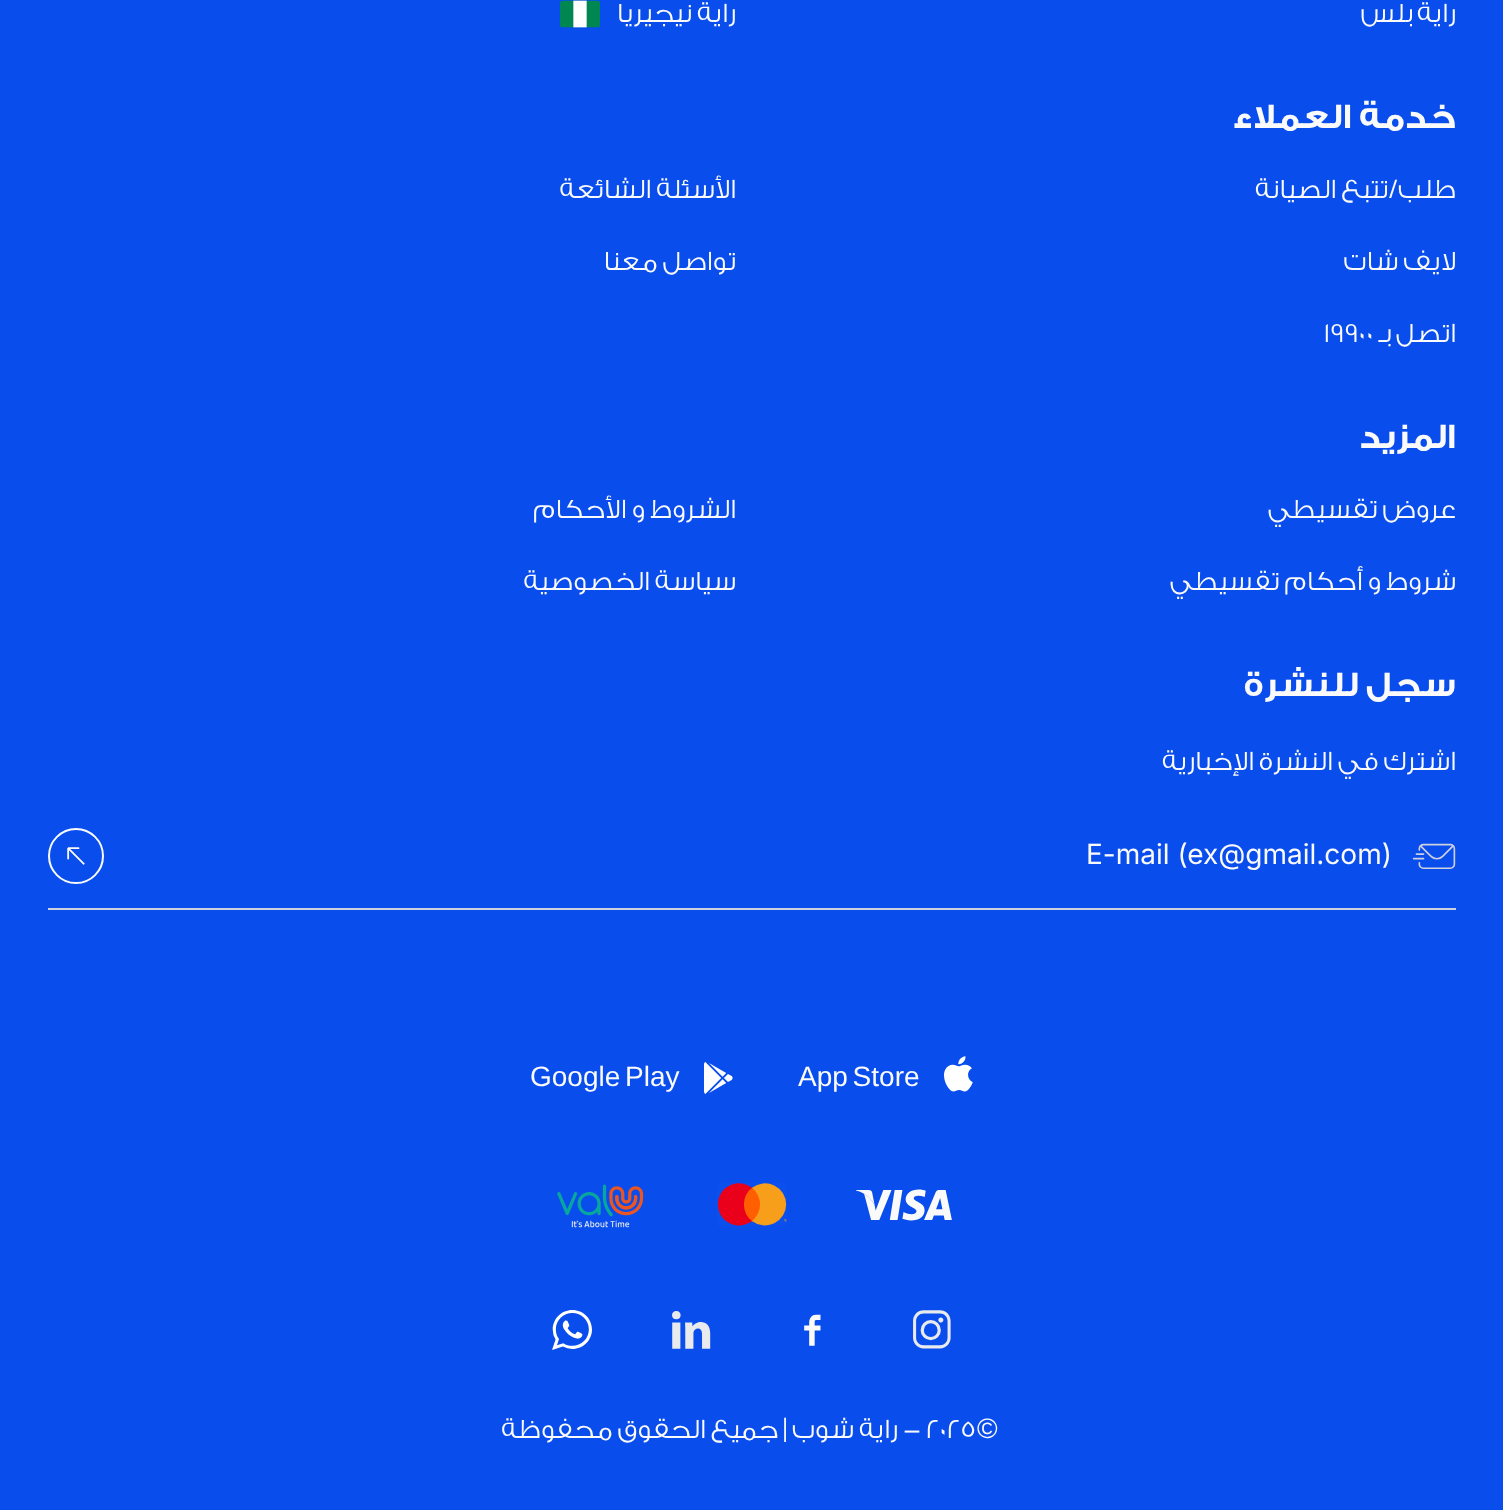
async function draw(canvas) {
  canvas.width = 1503;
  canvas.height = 1510;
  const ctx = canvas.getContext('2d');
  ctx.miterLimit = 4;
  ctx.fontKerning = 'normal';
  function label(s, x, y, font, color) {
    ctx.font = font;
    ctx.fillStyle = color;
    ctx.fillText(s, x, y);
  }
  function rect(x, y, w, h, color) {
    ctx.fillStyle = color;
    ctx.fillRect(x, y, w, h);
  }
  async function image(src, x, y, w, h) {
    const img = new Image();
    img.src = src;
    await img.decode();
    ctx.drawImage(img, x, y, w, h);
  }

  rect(0, 0, 1503, 1510, '#094eed');
  ctx.direction = 'rtl';
  label('راية بلس', 1456, 22, '300 28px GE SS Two', '#fafafa');
  label('راية نيجيريا', 736, 22, '300 28px GE SS Two', '#fafafa');
  await image('assets/img1.png', 560, 0, 40, 28);
  label('خدمة العملاء', 1456, 128, 'bold 36px GE SS Two', '#fafafa');
  label('طلب/تتبع الصيانة', 1456, 198, '300 28px GE SS Two', '#fafafa');
  label('الأسئلة الشائعة', 736, 198, '300 28px GE SS Two', '#fafafa');
  label('لايف شات', 1456, 270, '300 28px GE SS Two', '#fafafa');
  label('تواصل معنا', 736, 270, '300 28px GE SS Two', '#fafafa');
  label('اتصل بـ', 1456, 342, '300 28px GE SS Two', '#fafafa');
  ctx.direction = 'ltr';
  label('19900', 1324, 342, '300 28px GE SS Two', '#fafafa');
  ctx.direction = 'rtl';
  label('المزيد', 1456, 448, 'bold 36px GE SS Two', '#fafafa');
  label('عروض تقسيطي', 1456, 518, '300 28px GE SS Two', '#fafafa');
  label('الشروط و الأحكام', 736, 518, '300 28px GE SS Two', '#fafafa');
  label('شروط و أحكام تقسيطي', 1456, 590, '300 28px GE SS Two', '#fafafa');
  label('سياسة الخصوصية', 736, 590, '300 28px GE SS Two', '#fafafa');
  label('سجل للنشرة', 1456, 696, 'bold 36px GE SS Two', '#fafafa');
  label('اشترك في النشرة الإخبارية', 1456, 770, '300 28px GE SS Two', '#fafafa');
  await image('assets/img2.png', 1412, 843, 44, 26);
  rect(48, 908, 1408, 2, '#ccd0df');
  ctx.direction = 'ltr';
  label('E-mail (ex@gmail.com)', 1086, 864, '28px Inter', '#fafafa');
  ctx.beginPath();
  ctx.arc(76, 856, 27, 0, 2 * Math.PI);
  ctx.strokeStyle = '#fafafa';
  ctx.lineWidth = 2;
  ctx.stroke();
  await image('assets/img3.png', 67, 847, 18, 18);
  await image('assets/img4.png', 944, 1056, 29, 36);
  ctx.wordSpacing = '-3px';
  label('App Store', 798, 1086, '28px Liberation Sans', '#fafafa');
  await image('assets/img5.png', 704, 1062, 29, 32);
  label('Google Play', 530, 1086, '28px Liberation Sans', '#fafafa');
  await image('assets/img6.png', 856, 1189, 96, 32);
  await image('assets/img7.png', 717, 1183, 70, 43);
  await image('assets/img8.png', 557, 1184, 87, 44);
  await image('assets/img9.png', 913, 1310, 38, 39);
  await image('assets/img10.png', 804, 1314, 17, 32);
  await image('assets/img11.png', 672, 1311, 39, 38);
  await image('assets/img12.png', 552, 1310, 40, 40);
  ctx.wordSpacing = '0px';
  label('©', 977, 1438, '28px Liberation Sans', '#fafafa');
  label('- 2025', 903, 1438, '300 28px GE SS Two', '#fafafa');
  ctx.direction = 'rtl';
  label('راية شوب | جميع الحقوق محفوظة', 898, 1438, '300 28px GE SS Two', '#fafafa');
}

draw(document.querySelector('canvas'));
